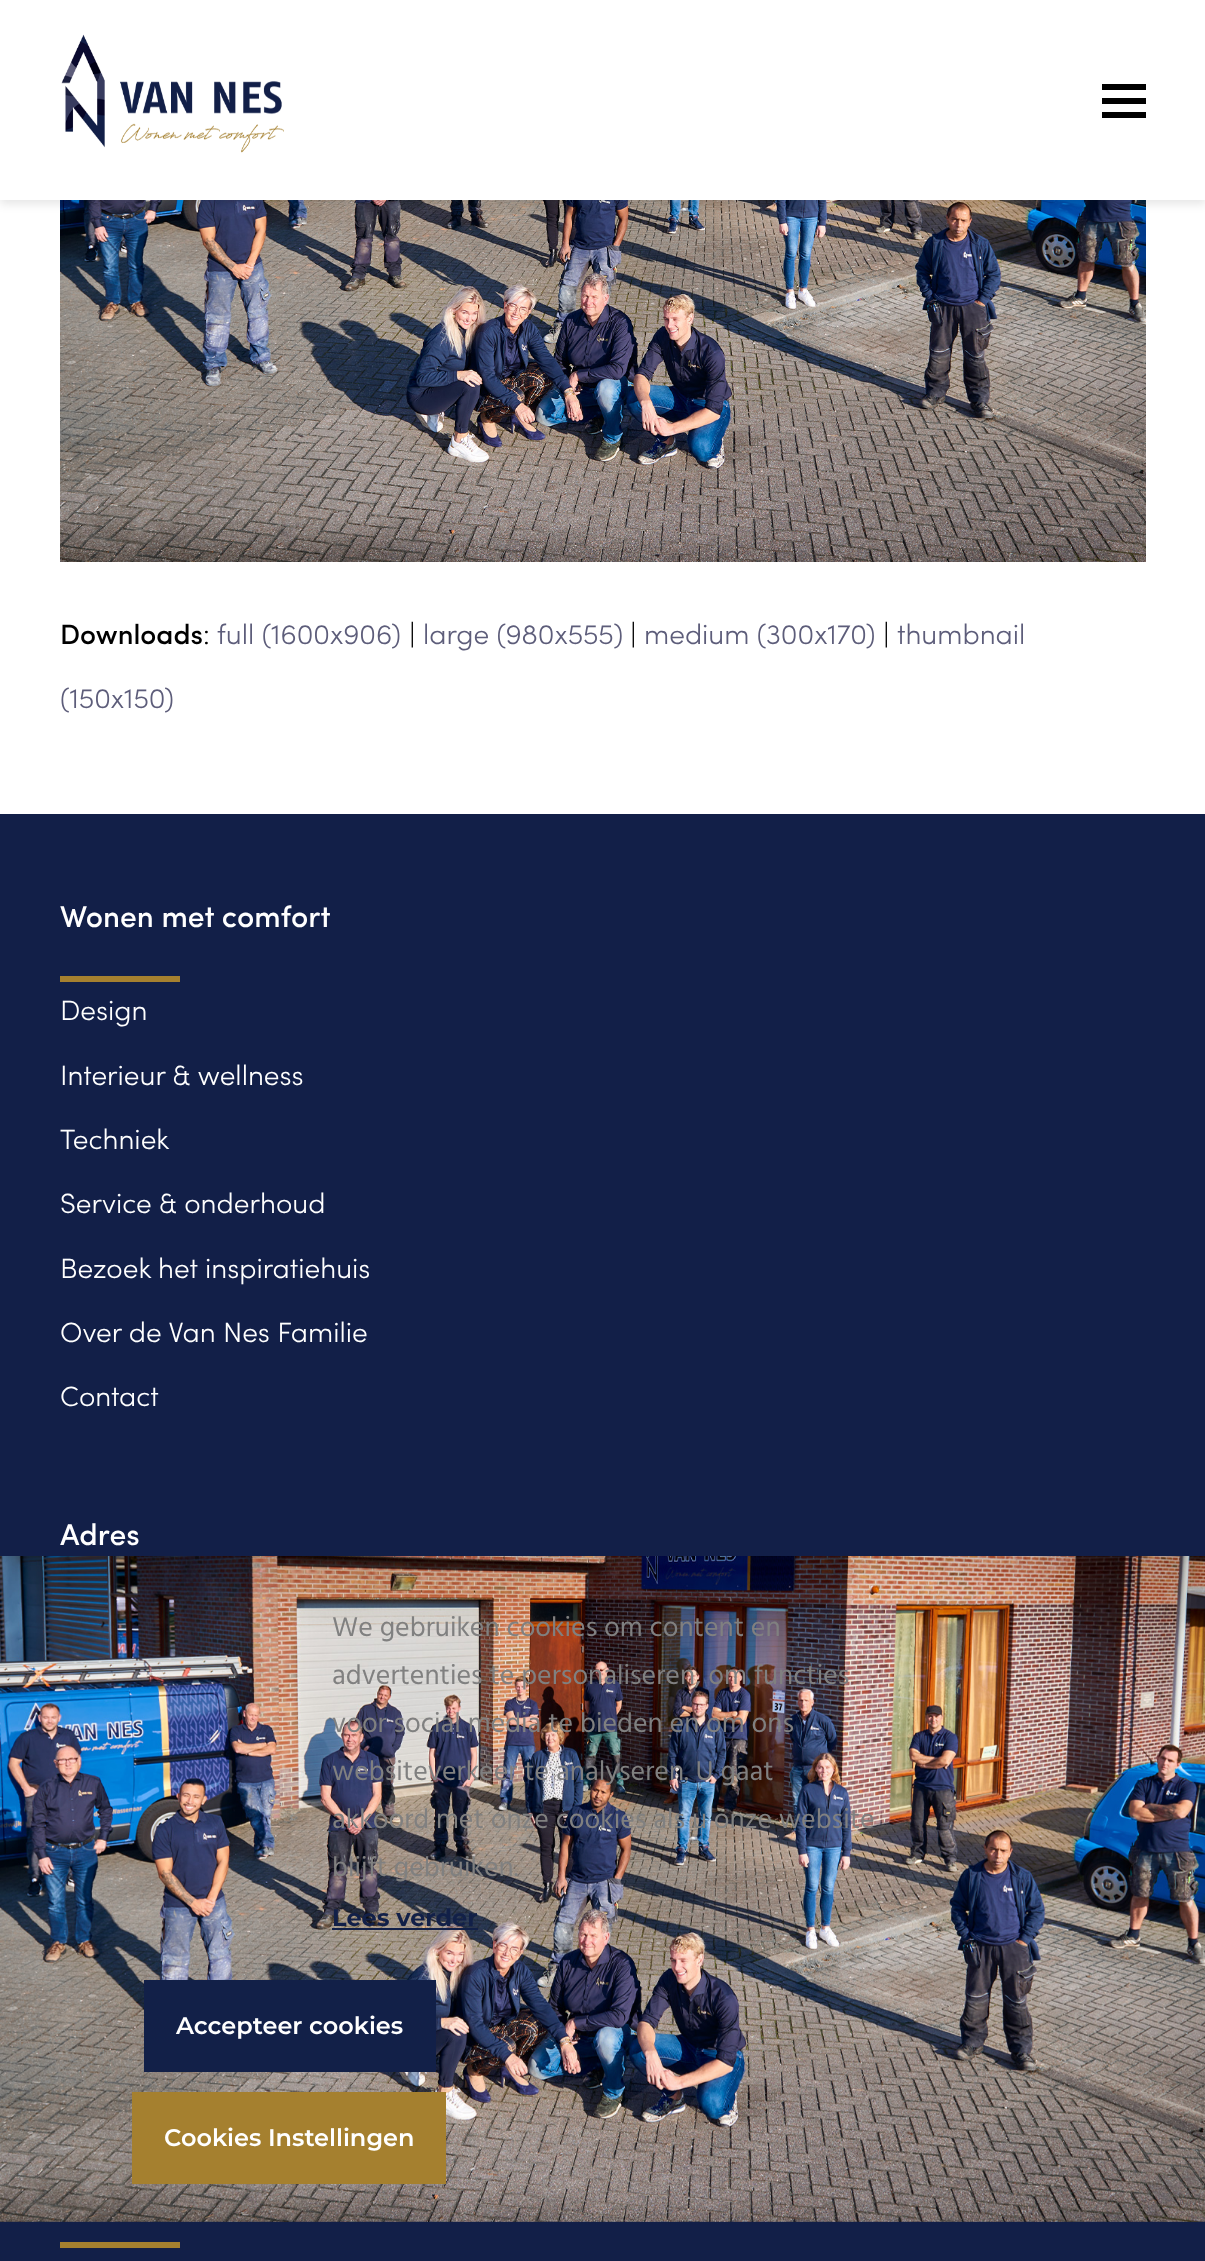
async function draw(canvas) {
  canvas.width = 1205;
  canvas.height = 2261;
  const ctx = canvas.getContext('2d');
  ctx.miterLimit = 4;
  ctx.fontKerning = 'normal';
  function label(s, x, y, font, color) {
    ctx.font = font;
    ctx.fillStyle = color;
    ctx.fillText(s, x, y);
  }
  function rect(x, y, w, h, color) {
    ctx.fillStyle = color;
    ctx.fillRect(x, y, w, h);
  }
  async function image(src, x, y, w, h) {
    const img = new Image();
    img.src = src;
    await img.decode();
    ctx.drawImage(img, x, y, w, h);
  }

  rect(0, 0, 1205, 2261, '#fff');
  await image('assets/img2.png', 60, 200, 1086, 362);
  ctx.fillStyle = '#0000001a';
  ctx.filter = 'blur(5px)';
  ctx.beginPath();
  ctx.rect(0, 4, 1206, 200);
  ctx.fill();
  ctx.filter = 'none';
  rect(0, 0, 1205, 200, '#fff');
  await image('assets/img1.png', 61, 34, 223, 119);
  rect(1102, 98, 44, 6, '#000');
  rect(1102, 84, 44, 6, '#000');
  rect(1102, 112, 44, 6, '#000');
  label('Downloads', 60, 644, '500 28px Sofia', '#000');
  label(':', 203, 644, '300 28px Sofia', '#000');
  label('full (1600x906)', 217, 644, '300 28px Sofia', '#5d5d7a');
  label('|', 409, 644, '300 28px Sofia', '#000');
  label('large (980x555)', 423, 644, '300 28px Sofia', '#5d5d7a');
  label('|', 630, 644, '300 28px Sofia', '#000');
  label('medium (300x170)', 644, 644, '300 28px Sofia', '#5d5d7a');
  label('|', 883, 644, '300 28px Sofia', '#000');
  label('thumbnail', 897, 644, '300 28px Sofia', '#5d5d7a');
  label('(150x150)', 60, 708, '300 28px Sofia', '#5d5d7a');
  rect(0, 814, 1205, 1447, '#121f48');
  label('Wonen met comfort', 60, 927, '500 30.25px Sofia', '#fff');
  rect(60, 976, 120, 6, '#a5802f');
  label('Design', 60, 1020, '300 28px Sofia', '#fff');
  label('Interieur & wellness', 60, 1085, '300 28px Sofia', '#fff');
  label('Techniek', 60, 1149, '300 28px Sofia', '#fff');
  label('Service & onderhoud', 60, 1213, '300 28px Sofia', '#fff');
  label('Bezoek het inspiratiehuis', 60, 1278, '300 28px Sofia', '#fff');
  label('Over de Van Nes Familie', 60, 1342, '300 28px Sofia', '#fff');
  label('Contact', 60, 1406, '300 28px Sofia', '#fff');
  label('Adres', 60, 1545, '500 30.25px Sofia', '#fff');
  rect(60, 2242, 120, 6, '#a5802f');
  await image('assets/img3.png', 0, 1556, 1205, 666);
  label('We gebruiken cookies om content en', 332, 1636, '28px Hind', '#808080');
  label('advertenties te personaliseren, om functies', 332, 1684, '28px Hind', '#808080');
  label('voor social media te bieden en om ons', 332, 1732, '28px Hind', '#808080');
  label('websiteverkeer te analyseren. U gaat', 332, 1780, '28px Hind', '#808080');
  label('akkoord met onze cookies als u onze website', 332, 1828, '28px Hind', '#808080');
  label('blijft gebruiken.', 332, 1876, '28px Hind', '#808080');
  label('Lees verder', 332, 1926, 'bold 24px Montserrat', '#122048');
  rect(332, 1928, 146, 2, '#122048');
  rect(144, 1980, 292, 92, '#122048');
  label('Accepteer cookies', 176, 2034, '600 24px Montserrat', '#fff');
  rect(132, 2092, 314, 92, '#a5802f');
  label('Cookies Instellingen', 164, 2146, '600 24px Montserrat', '#fff');
}

draw(document.querySelector('canvas'));
